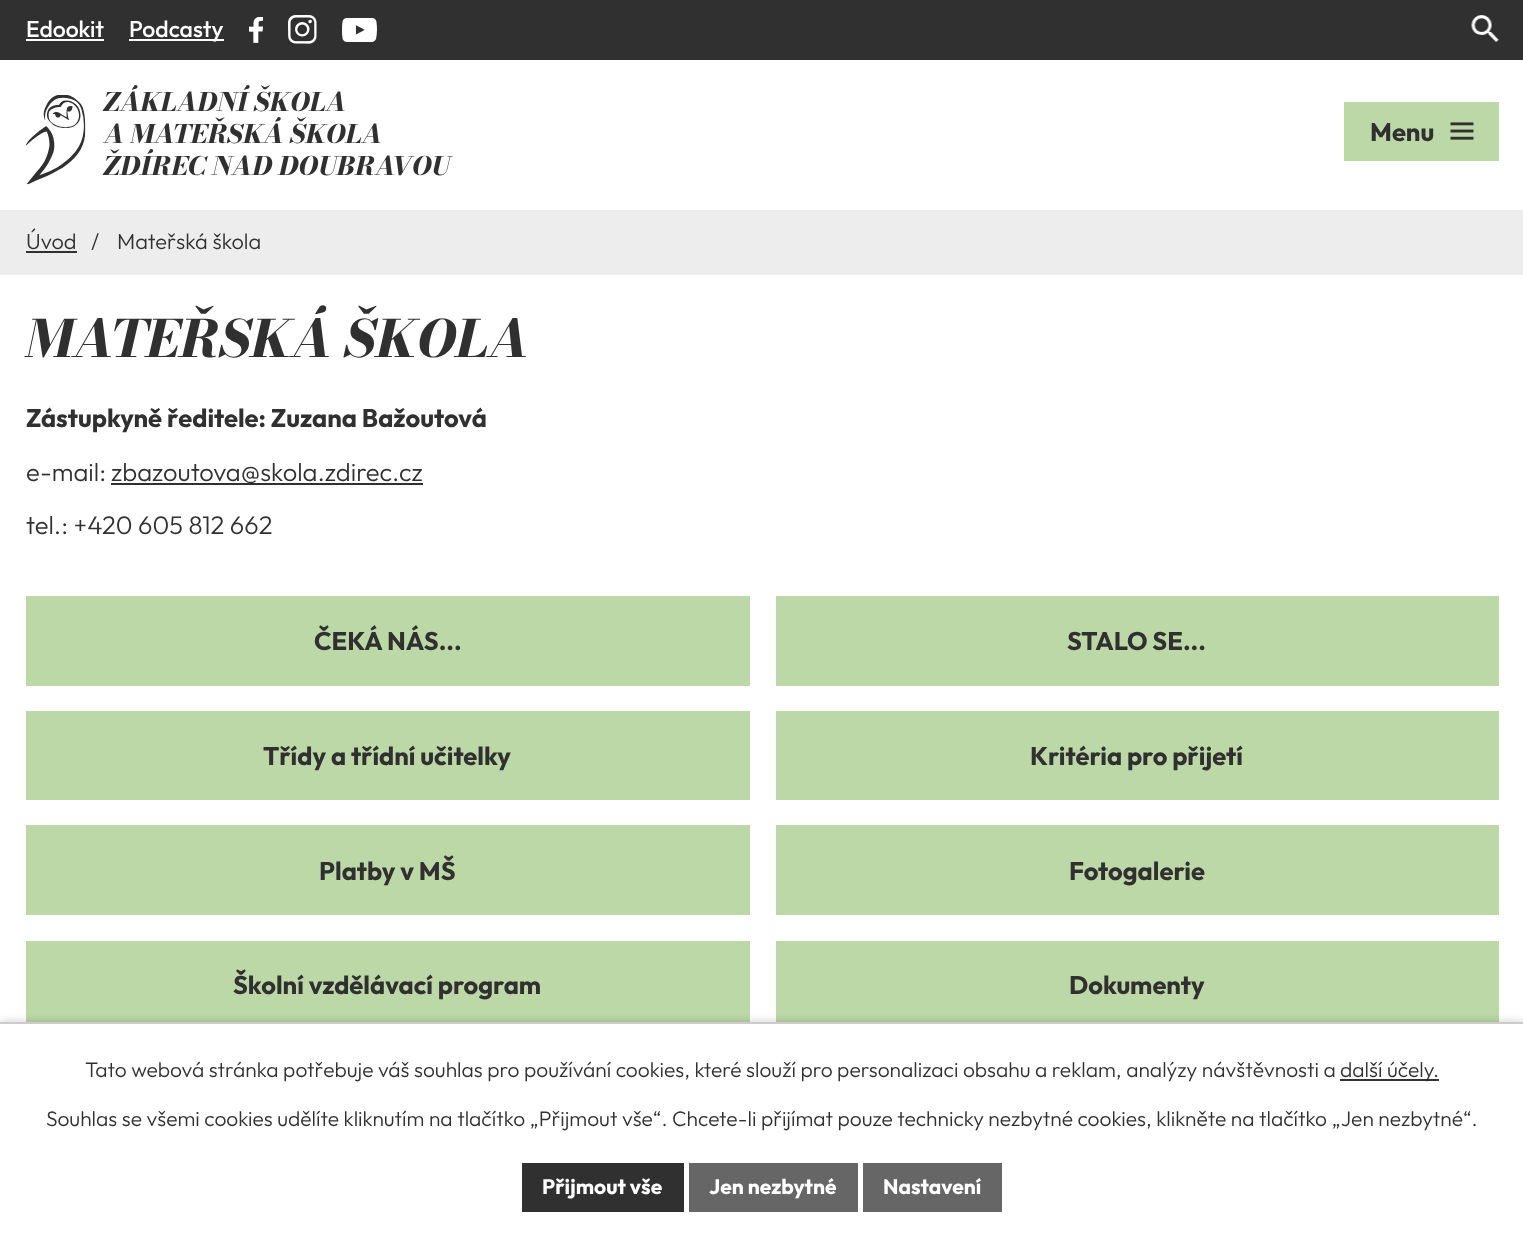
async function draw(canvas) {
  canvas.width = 1523;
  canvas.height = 1238;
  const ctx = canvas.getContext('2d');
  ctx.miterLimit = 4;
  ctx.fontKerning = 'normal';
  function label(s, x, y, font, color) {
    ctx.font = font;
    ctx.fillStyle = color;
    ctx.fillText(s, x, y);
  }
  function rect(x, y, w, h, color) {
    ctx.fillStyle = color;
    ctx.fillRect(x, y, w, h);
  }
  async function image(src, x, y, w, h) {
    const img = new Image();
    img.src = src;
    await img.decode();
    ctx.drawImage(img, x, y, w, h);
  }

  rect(0, 0, 1523, 1238, '#fff');
  rect(0, 0, 1523, 60, '#303030');
  label('Edookit', 26, 37, '500 23px Outfit', '#fff');
  rect(26, 39, 78, 2, '#fff');
  rect(129, 39, 95, 2, '#fff');
  label('Podcasty', 129, 37, '500 23px Outfit', '#fff');
  await image('assets/img1.png', 249, 17, 14, 26);
  await image('assets/img2.png', 288, 15, 29, 29);
  await image('assets/img3.png', 342, 18, 35, 24);
  await image('assets/img4.png', 1471, 15, 28, 27);
  await image('assets/img5.png', 26, 95, 60, 90);
  label('ZÁKLADNÍ ŠKOLA', 104, 111, 'italic 800 25.5px Bodoni Moda', '#303030');
  label('A MATEŘSKÁ ŠKOLA', 104, 143, 'italic 800 25.5px Bodoni Moda', '#303030');
  label('ŽDÍREC NAD DOUBRAVOU', 104, 175, 'italic 800 25.5px Bodoni Moda', '#303030');
  rect(1344, 102, 155, 59, '#bcd8a6');
  label('Menu', 1370, 141, 'bold 25.5px Outfit', '#303030');
  await image('assets/img6.png', 1450, 122, 24, 18);
  rect(0, 210, 1523, 65, '#ededed');
  label('Úvod', 26, 249, '300 21.75px Outfit', '#303030');
  rect(26, 251, 51, 2, '#303030');
  label('/', 91, 249, '300 21.75px Outfit', '#303030');
  label('Mateřská škola', 117, 249, '300 21.75px Outfit', '#303030');
  label('MATEŘSKÁ ŠKOLA', 26, 357, 'italic 800 51px Bodoni Moda', '#303030');
  label('Zástupkyně ředitele: Zuzana Bažoutová', 26, 427, 'bold 25.5px Outfit', '#303030');
  label('e-mail:', 26, 481, '300 25.5px Outfit', '#303030');
  rect(111, 483, 312, 2, '#303030');
  label('zbazoutova@skola.zdirec.cz', 111, 481, '300 25.5px Outfit', '#303030');
  label('tel.: +420 605 812 662', 26, 534, '300 25.5px Outfit', '#303030');
  rect(26, 596, 724, 90, '#bcd8a6');
  label('ČEKÁ NÁS...', 314, 650, 'bold 25.5px Outfit', '#303030');
  rect(776, 596, 723, 90, '#bcd8a6');
  label('STALO SE...', 1067, 650, 'bold 25.5px Outfit', '#303030');
  rect(26, 711, 724, 89, '#bcd8a6');
  label('Třídy a třídní učitelky', 263, 765, 'bold 25.5px Outfit', '#303030');
  rect(776, 711, 723, 89, '#bcd8a6');
  label('Kritéria pro přijetí', 1030, 765, 'bold 25.5px Outfit', '#303030');
  rect(26, 825, 724, 90, '#bcd8a6');
  label('Platby v MŠ', 319, 880, 'bold 25.5px Outfit', '#303030');
  rect(776, 825, 723, 90, '#bcd8a6');
  label('Fotogalerie', 1069, 880, 'bold 25.5px Outfit', '#303030');
  rect(26, 941, 724, 81, '#bcd8a6');
  label('Školní vzdělávací program', 233, 994, 'bold 25.5px Outfit', '#303030');
  rect(776, 941, 723, 81, '#bcd8a6');
  label('Dokumenty', 1069, 994, 'bold 25.5px Outfit', '#303030');
  ctx.fillStyle = '#00000033';
  ctx.filter = 'blur(4px)';
  ctx.beginPath();
  ctx.rect(0, 1022, 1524, 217);
  ctx.fill();
  ctx.filter = 'none';
  rect(0, 1024, 1523, 214, '#fff');
  rect(0, 1022, 1523, 2, '#ccc');
  label('Tato webová stránka potřebuje váš souhlas pro používání cookies, které slouží pro personalizaci obsahu a reklam, analýzy návštěvnosti a', 85, 1077, '300 21px Outfit', '#303030');
  rect(1340, 1079, 99, 2, '#333');
  label('další účely.', 1340, 1077, '300 21px Outfit', '#303030');
  label('Souhlas se všemi cookies udělíte kliknutím na tlačítko „Přijmout vše“. Chcete-li přijímat pouze technicky nezbytné cookies, klikněte na tlačítko „Jen nezbytné“.', 46, 1126, '300 21px Outfit', '#303030');
  rect(522, 1163, 162, 49, '#303030');
  label('Přijmout vše', 542, 1194, 'bold 21px Outfit', '#fff');
  rect(689, 1163, 169, 49, '#666');
  label('Jen nezbytné', 709, 1194, 'bold 21px Outfit', '#fff');
  rect(863, 1163, 139, 49, '#666');
  label('Nastavení', 883, 1194, 'bold 21px Outfit', '#fff');
}

draw(document.querySelector('canvas'));
